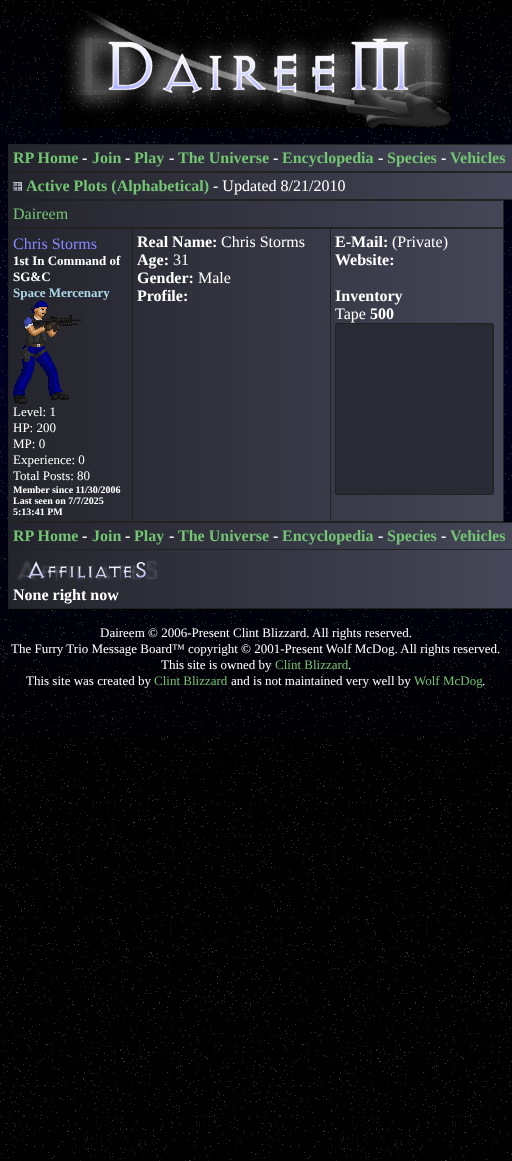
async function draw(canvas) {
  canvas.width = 512;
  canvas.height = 1161;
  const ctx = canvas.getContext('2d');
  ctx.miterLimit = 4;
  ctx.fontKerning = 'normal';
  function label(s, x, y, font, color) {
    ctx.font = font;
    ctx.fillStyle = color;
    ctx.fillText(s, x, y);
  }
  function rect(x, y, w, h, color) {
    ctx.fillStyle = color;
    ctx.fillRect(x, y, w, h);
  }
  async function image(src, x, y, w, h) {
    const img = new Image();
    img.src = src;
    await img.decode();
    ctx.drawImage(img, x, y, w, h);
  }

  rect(0, 0, 512, 1161, '#fff');
  await image('assets/img1.png', 0, 0, 512, 1161);
  await image('assets/img2.png', 62, 8, 389, 120);
  await image('assets/img3.png', 8, 144, 504, 28);
  label('RP Home', 13, 163, 'bold 16px Liberation Serif', '#73c573');
  label('-', 82, 163, 'bold 16px Liberation Serif', '#fff');
  label('Join', 92, 163, 'bold 16px Liberation Serif', '#73c573');
  label('-', 125, 163, 'bold 16px Liberation Serif', '#fff');
  label('Play', 134, 163, 'bold 16px Liberation Serif', '#73c573');
  label('-', 169, 163, 'bold 16px Liberation Serif', '#fff');
  label('The Universe', 178, 163, 'bold 16px Liberation Serif', '#73c573');
  label('-', 273, 163, 'bold 16px Liberation Serif', '#fff');
  label('Encyclopedia', 282, 163, 'bold 16px Liberation Serif', '#73c573');
  label('-', 378, 163, 'bold 16px Liberation Serif', '#fff');
  label('Species', 387, 163, 'bold 16px Liberation Serif', '#73c573');
  label('-', 441, 163, 'bold 16px Liberation Serif', '#fff');
  label('Vehicles', 450, 163, 'bold 16px Liberation Serif', '#73c573');
  await image('assets/img3.png', 8, 172, 504, 28);
  await image('assets/img4.png', 13, 182, 9, 9);
  label('Active Plots (Alphabetical)', 26, 191, 'bold 16px Liberation Serif', '#73c573');
  label('- Updated 8/21/2010', 213, 191, '16px Liberation Serif', '#fff');
  await image('assets/img5.png', 8, 200, 496, 28);
  label('Daireem', 13, 219, '16px Liberation Serif', '#73c573');
  await image('assets/img6.png', 8, 228, 496, 294);
  label('Chris Storms', 13, 249, '16px Liberation Serif', '#88f');
  label('1st In Command of', 13, 265, 'bold 13px Liberation Serif', '#fff');
  label('SG&C', 13, 281, 'bold 13px Liberation Serif', '#fff');
  label('Space Mercenary', 13, 297, 'bold 13px Liberation Serif', '#add8e6');
  await image('assets/img7.png', 13, 301, 68, 103);
  label('Level: 1', 13, 416, '13px Liberation Serif', '#fff');
  label('HP: 200', 13, 432, '13px Liberation Serif', '#fff');
  label('MP: 0', 13, 448, '13px Liberation Serif', '#fff');
  label('Experience: 0', 13, 464, '13px Liberation Serif', '#fff');
  label('Total Posts: 80', 13, 480, '13px Liberation Serif', '#fff');
  label('Member since 11/30/2006', 13, 493, 'bold 10px Liberation Serif', '#fff');
  label('Last seen on 7/7/2025', 13, 504, 'bold 10px Liberation Serif', '#fff');
  label('5:13:41 PM', 13, 515, 'bold 10px Liberation Serif', '#fff');
  label('Real Name:', 137, 247, 'bold 16px Liberation Serif', '#fff');
  label('Chris Storms', 221, 247, '16px Liberation Serif', '#fff');
  label('Age:', 137, 265, 'bold 16px Liberation Serif', '#fff');
  label('31', 173, 265, '16px Liberation Serif', '#fff');
  label('Gender:', 137, 283, 'bold 16px Liberation Serif', '#fff');
  label('Male', 198, 283, '16px Liberation Serif', '#fff');
  label('Profile:', 137, 301, 'bold 16px Liberation Serif', '#fff');
  label('E-Mail:', 335, 247, 'bold 16px Liberation Serif', '#fff');
  label('(Private)', 392, 247, '16px Liberation Serif', '#fff');
  label('Website:', 335, 265, 'bold 16px Liberation Serif', '#fff');
  label('Inventory', 335, 301, 'bold 16px Liberation Serif', '#fff');
  label('Tape', 335, 319, '16px Liberation Serif', '#fff');
  label('500', 370, 319, 'bold 16px Liberation Serif', '#fff');
  ctx.fillStyle = '#292a33';
  ctx.beginPath();
  ctx.roundRect(335.5, 323.5, 158, 171, 1.5);
  ctx.fill();
  ctx.strokeStyle = '#222';
  ctx.stroke();
  await image('assets/img8.png', 8, 522, 504, 87);
  label('RP Home', 13, 541, 'bold 16px Liberation Serif', '#73c573');
  label('-', 82, 541, 'bold 16px Liberation Serif', '#fff');
  label('Join', 92, 541, 'bold 16px Liberation Serif', '#73c573');
  label('-', 125, 541, 'bold 16px Liberation Serif', '#fff');
  label('Play', 134, 541, 'bold 16px Liberation Serif', '#73c573');
  label('-', 169, 541, 'bold 16px Liberation Serif', '#fff');
  label('The Universe', 178, 541, 'bold 16px Liberation Serif', '#73c573');
  label('-', 273, 541, 'bold 16px Liberation Serif', '#fff');
  label('Encyclopedia', 282, 541, 'bold 16px Liberation Serif', '#73c573');
  label('-', 378, 541, 'bold 16px Liberation Serif', '#fff');
  label('Species', 387, 541, 'bold 16px Liberation Serif', '#73c573');
  label('-', 441, 541, 'bold 16px Liberation Serif', '#fff');
  label('Vehicles', 450, 541, 'bold 16px Liberation Serif', '#73c573');
  await image('assets/img9.png', 15, 559, 144, 23);
  label('None right now', 13, 600, 'bold 16px Liberation Serif', '#fff');
  label('Daireem © 2006-Present Clint Blizzard. All rights reserved.', 100, 637, '13px Liberation Serif', '#fff');
  label('The Furry Trio Message Board™ copyright © 2001-Present Wolf McDog. All rights reserved.', 11, 653, '13px Liberation Serif', '#fff');
  label('This site is owned by', 161, 669, '13px Liberation Serif', '#fff');
  label('Clint Blizzard', 275, 669, '13px Liberation Serif', '#73c573');
  label('.', 348, 669, '13px Liberation Serif', '#fff');
  label('This site was created by', 26, 685, '13px Liberation Serif', '#fff');
  label('Clint Blizzard', 154, 685, '13px Liberation Serif', '#73c573');
  label('and is not maintained very well by', 231, 685, '13px Liberation Serif', '#fff');
  label('Wolf McDog', 414, 685, '13px Liberation Serif', '#73c573');
  label('.', 482, 685, '13px Liberation Serif', '#fff');
}

draw(document.querySelector('canvas'));
